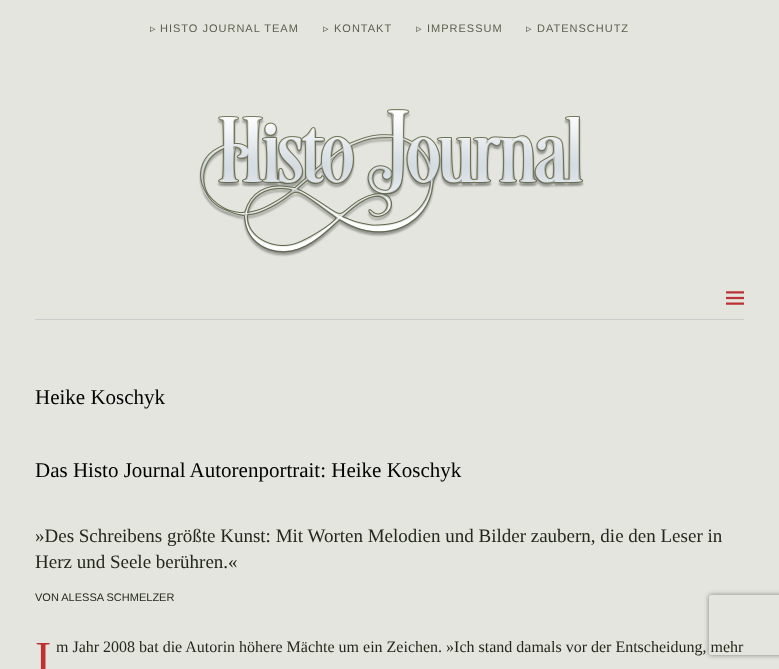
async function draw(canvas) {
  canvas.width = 779;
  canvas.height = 669;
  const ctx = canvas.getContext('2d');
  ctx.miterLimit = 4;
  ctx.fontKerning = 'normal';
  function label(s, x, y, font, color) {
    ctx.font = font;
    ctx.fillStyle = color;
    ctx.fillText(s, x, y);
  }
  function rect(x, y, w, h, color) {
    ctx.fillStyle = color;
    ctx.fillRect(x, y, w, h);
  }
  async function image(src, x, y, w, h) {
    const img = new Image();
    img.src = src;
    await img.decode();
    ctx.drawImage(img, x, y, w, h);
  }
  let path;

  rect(0, 0, 779, 669, '#e4e5de');
  ctx.letterSpacing = '1px';
  label('▹', 150, 32, '11px DejaVu Sans', '#5c5e4c');
  label('HISTO JOURNAL TEAM', 160, 32, '11px Liberation Sans', '#5c5e4c');
  label('▹', 323, 32, '11px DejaVu Sans', '#5c5e4c');
  label('KONTAKT', 334, 32, '11px Liberation Sans', '#5c5e4c');
  label('▹', 416, 32, '11px DejaVu Sans', '#5c5e4c');
  label('IMPRESSUM', 427, 32, '11px Liberation Sans', '#5c5e4c');
  label('▹', 526, 32, '11px DejaVu Sans', '#5c5e4c');
  label('DATENSCHUTZ', 537, 32, '11px Liberation Sans', '#5c5e4c');
  await image('assets/img1.png', 199, 109, 385, 148);
  await image('assets/img2.png', 726, 291, 18, 14);
  rect(35, 319, 709, 1, '#ccc');
  ctx.letterSpacing = '0px';
  label('Heike Koschyk', 35, 404, '21px Liberation Serif', '#000');
  label('Das Histo Journal Autorenportrait: Heike Koschyk', 35, 477, '21px Liberation Serif', '#000');
  label('»Des Schreibens größte Kunst: Mit Worten Melodien und Bilder zaubern, die den Leser in', 35, 542, '19px Liberation Serif', '#25291d');
  label('Herz und Seele berühren.«', 35, 568, '19px Liberation Serif', '#25291d');
  label('VON ALESSA SCHMELZER', 35, 601, '11px Liberation Sans', '#25291d');
  label('I', 35, 675, '49px Liberation Serif', '#be3235');
  label('m Jahr 2008 bat die Autorin höhere Mächte um ein Zeichen. »Ich stand damals vor der Entscheidung, mehr', 56, 652, '16px Liberation Serif', '#25291d');
  ctx.save();
  path = new Path2D('M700 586H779V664H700ZM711 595H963C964 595 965 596 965 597V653C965 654 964 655 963 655H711C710 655 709 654 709 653V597C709 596 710 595 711 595Z');
  ctx.clip(path, 'evenodd');
  ctx.fillStyle = '#808080';
  ctx.filter = 'blur(2.5px)';
  ctx.beginPath();
  ctx.roundRect(709, 595, 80, 60, 2);
  ctx.fill();
  ctx.filter = 'none';
  ctx.restore();
}

draw(document.querySelector('canvas'));
